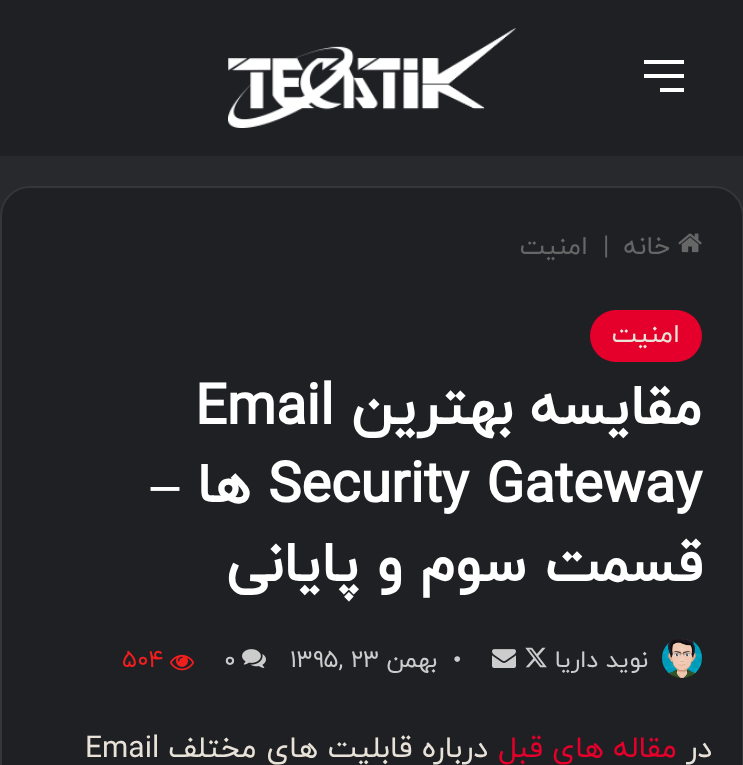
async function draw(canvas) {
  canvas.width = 743;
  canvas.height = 765;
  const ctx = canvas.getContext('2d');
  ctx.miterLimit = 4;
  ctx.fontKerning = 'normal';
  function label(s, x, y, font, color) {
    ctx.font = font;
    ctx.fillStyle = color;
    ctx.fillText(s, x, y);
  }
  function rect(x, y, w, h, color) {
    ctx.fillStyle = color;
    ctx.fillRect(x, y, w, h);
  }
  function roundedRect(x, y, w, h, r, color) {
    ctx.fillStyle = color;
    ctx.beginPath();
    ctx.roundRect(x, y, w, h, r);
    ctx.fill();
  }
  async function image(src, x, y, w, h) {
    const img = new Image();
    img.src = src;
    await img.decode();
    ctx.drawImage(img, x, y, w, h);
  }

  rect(0, 0, 743, 765, '#27292d');
  rect(0, 0, 743, 156, '#1f2024');
  rect(644, 74, 40, 4, '#fff');
  rect(644, 60, 40, 4, '#fff');
  rect(660, 88, 24, 4, '#fff');
  await image('assets/img1.png', 228, 28, 288, 100);
  roundedRect(0, 186, 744, 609, 30, '#1f2024');
  ctx.beginPath();
  ctx.roundRect(1, 187, 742, 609, 29);
  ctx.strokeStyle = '#ffffff1a';
  ctx.lineWidth = 2;
  ctx.stroke();
  await image('assets/img2.png', 678, 233, 24, 20);
  ctx.direction = 'rtl';
  label('خانه', 670, 254, '26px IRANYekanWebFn', '#666');
  ctx.direction = 'ltr';
  label('|', 603, 254, '26px IRANYekanWebFn', '#666');
  ctx.direction = 'rtl';
  label('امنیت', 588, 254, '26px IRANYekanWebFn', '#666');
  roundedRect(590, 310, 112, 52, 26, '#e4002b');
  label('امنیت', 680, 342, '26px IRANYekanWebFn', '#e8e2d8');
  label('مقایسه بهترین', 702, 424, 'bold 56px IRANYekanWebFn', '#fff');
  ctx.direction = 'ltr';
  label('Email', 195, 424, 'bold 56px IRANYekanWebFn', '#fff');
  label('Security Gateway', 268, 502, 'bold 56px IRANYekanWebFn', '#fff');
  ctx.direction = 'rtl';
  label('ها', 250, 502, 'bold 56px IRANYekanWebFn', '#fff');
  label('–', 179, 502, 'bold 56px Liberation Serif', '#fff');
  label('قسمت سوم و پایانی', 702, 581, 'bold 56px IRANYekanWebFn', '#fff');
  await image('assets/img3.png', 662, 638, 40, 40);
  label('نوید داریا', 648, 667, '24px IRANYekanWebFn', '#ccc');
  await image('assets/img4.png', 525, 647, 22, 21);
  await image('assets/img5.png', 492, 649, 24, 19);
  ctx.direction = 'ltr';
  label('•', 453, 667, '24px Liberation Serif', '#ccc');
  ctx.direction = 'rtl';
  label('بهمن', 437, 667, '24px IRANYekanWebFn', '#ccc');
  ctx.direction = 'ltr';
  label('۱۳۹۵, ۲۳', 290, 667, '24px IRANYekanWebFn', '#ccc');
  await image('assets/img6.png', 242, 649, 24, 19);
  label('۰', 224, 667, '24px IRANYekanWebFn', '#ccc');
  await image('assets/img7.png', 170, 654, 24, 17);
  label('504', 122, 667, '24px IRANYekanWebFn', '#f11e1e');
  ctx.direction = 'rtl';
  label('در', 712, 757, '30px IRANYekanWebFn', '#e8e2d8');
  label('مقاله های قبل', 677, 757, '30px IRANYekanWebFn', '#e4002b');
  label('درباره قابلیت های مختلف', 488, 757, '30px IRANYekanWebFn', '#e8e2d8');
  ctx.direction = 'ltr';
  label('Email', 85, 757, '30px IRANYekanWebFn', '#e8e2d8');
}

draw(document.querySelector('canvas'));
